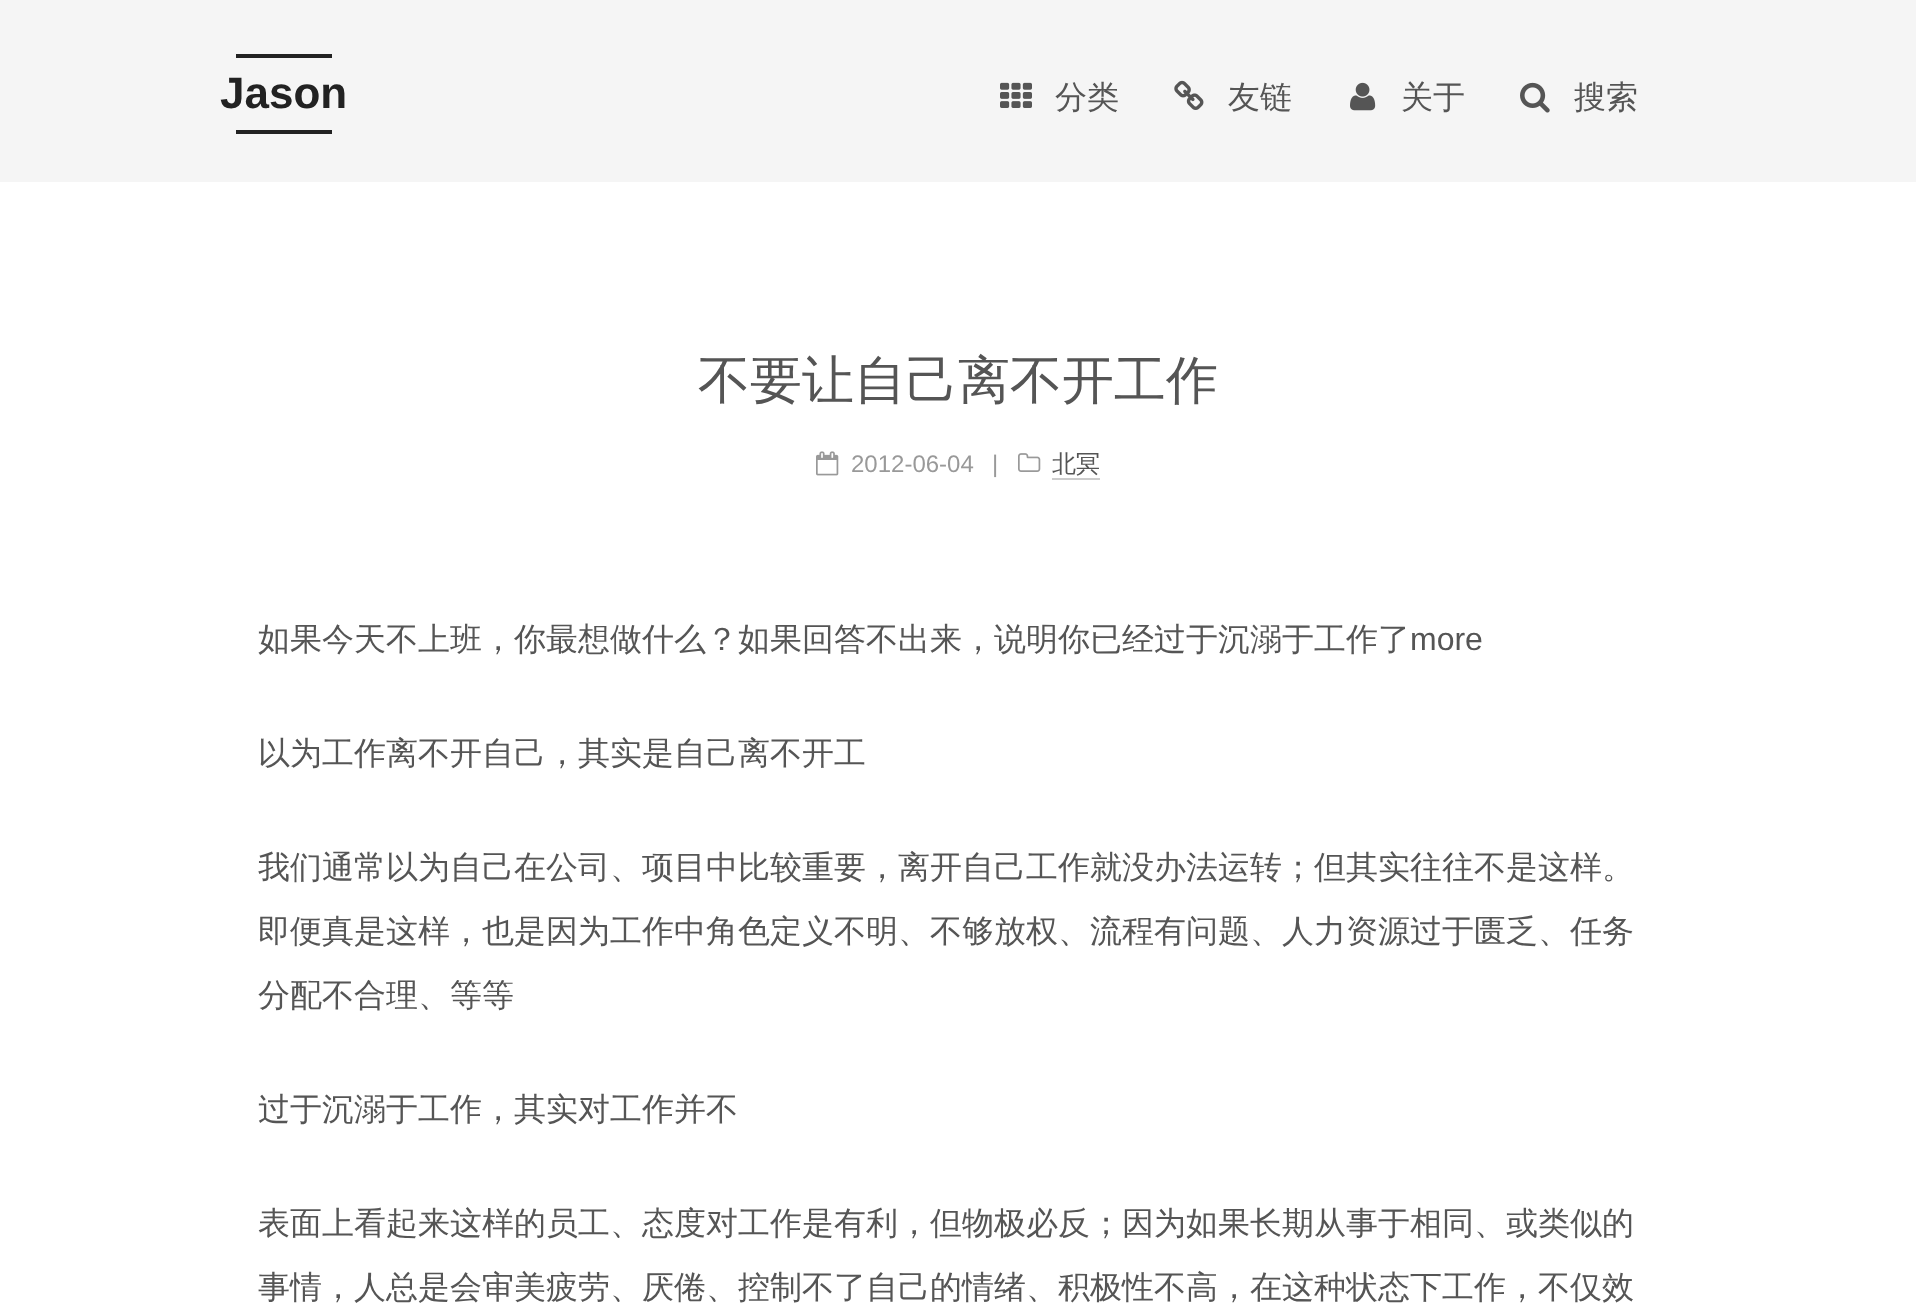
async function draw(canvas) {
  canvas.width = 1916;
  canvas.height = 1312;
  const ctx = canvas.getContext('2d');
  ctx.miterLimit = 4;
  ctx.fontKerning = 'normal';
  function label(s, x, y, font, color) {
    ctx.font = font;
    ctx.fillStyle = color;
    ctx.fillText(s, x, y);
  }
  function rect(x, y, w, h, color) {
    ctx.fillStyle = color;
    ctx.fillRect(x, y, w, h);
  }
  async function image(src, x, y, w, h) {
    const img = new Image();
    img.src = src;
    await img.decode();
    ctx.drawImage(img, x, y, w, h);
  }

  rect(0, 0, 1916, 1312, '#fff');
  rect(0, 0, 1916, 182, '#f5f5f5');
  rect(236, 54, 96, 4, '#222');
  label('Jason', 220, 108, 'bold 44px Liberation Sans', '#222');
  rect(236, 130, 96, 4, '#222');
  await image('assets/img1.png', 1000, 82, 32, 26);
  label('分类', 1055, 108, '500 32px WenQuanYi Zen Hei', '#555');
  await image('assets/img2.png', 1174, 80, 30, 30);
  label('友链', 1228, 108, '500 32px WenQuanYi Zen Hei', '#555');
  await image('assets/img3.png', 1350, 82, 26, 29);
  label('关于', 1401, 108, '500 32px WenQuanYi Zen Hei', '#555');
  await image('assets/img4.png', 1520, 82, 30, 31);
  label('搜索', 1574, 108, '500 32px WenQuanYi Zen Hei', '#555');
  label('不要让自己离不开工作', 698, 398, '500 52px WenQuanYi Zen Hei', '#555');
  await image('assets/img5.png', 816, 451, 23, 25);
  label('2012-06-04', 851, 472, '24px Liberation Sans', '#999');
  label('|', 992, 472, '24px Liberation Sans', '#999');
  await image('assets/img6.png', 1018, 453, 23, 19);
  label('北冥', 1052, 472, '500 24px WenQuanYi Zen Hei', '#555');
  rect(1052, 478, 48, 2, '#ccc');
  label('如果今天不上班，你最想做什么？如果回答不出来，说明你已经过于沉溺于工作了', 258, 650, '500 32px WenQuanYi Zen Hei', '#555');
  label('more', 1410, 650, '32px Liberation Sans', '#555');
  label('以为工作离不开自己，其实是自己离不开工', 258, 764, '500 32px WenQuanYi Zen Hei', '#555');
  label('我们通常以为自己在公司、项目中比较重要，离开自己工作就没办法运转；但其实往往不是这样。', 258, 878, '500 32px WenQuanYi Zen Hei', '#555');
  label('即便真是这样，也是因为工作中角色定义不明、不够放权、流程有问题、人力资源过于匮乏、任务', 258, 942, '500 32px WenQuanYi Zen Hei', '#555');
  label('分配不合理、等等', 258, 1006, '500 32px WenQuanYi Zen Hei', '#555');
  label('过于沉溺于工作，其实对工作并不', 258, 1120, '500 32px WenQuanYi Zen Hei', '#555');
  label('表面上看起来这样的员工、态度对工作是有利，但物极必反；因为如果长期从事于相同、或类似的', 258, 1234, '500 32px WenQuanYi Zen Hei', '#555');
  label('事情，人总是会审美疲劳、厌倦、控制不了自己的情绪、积极性不高，在这种状态下工作，不仅效', 258, 1298, '500 32px WenQuanYi Zen Hei', '#555');
}

draw(document.querySelector('canvas'));
